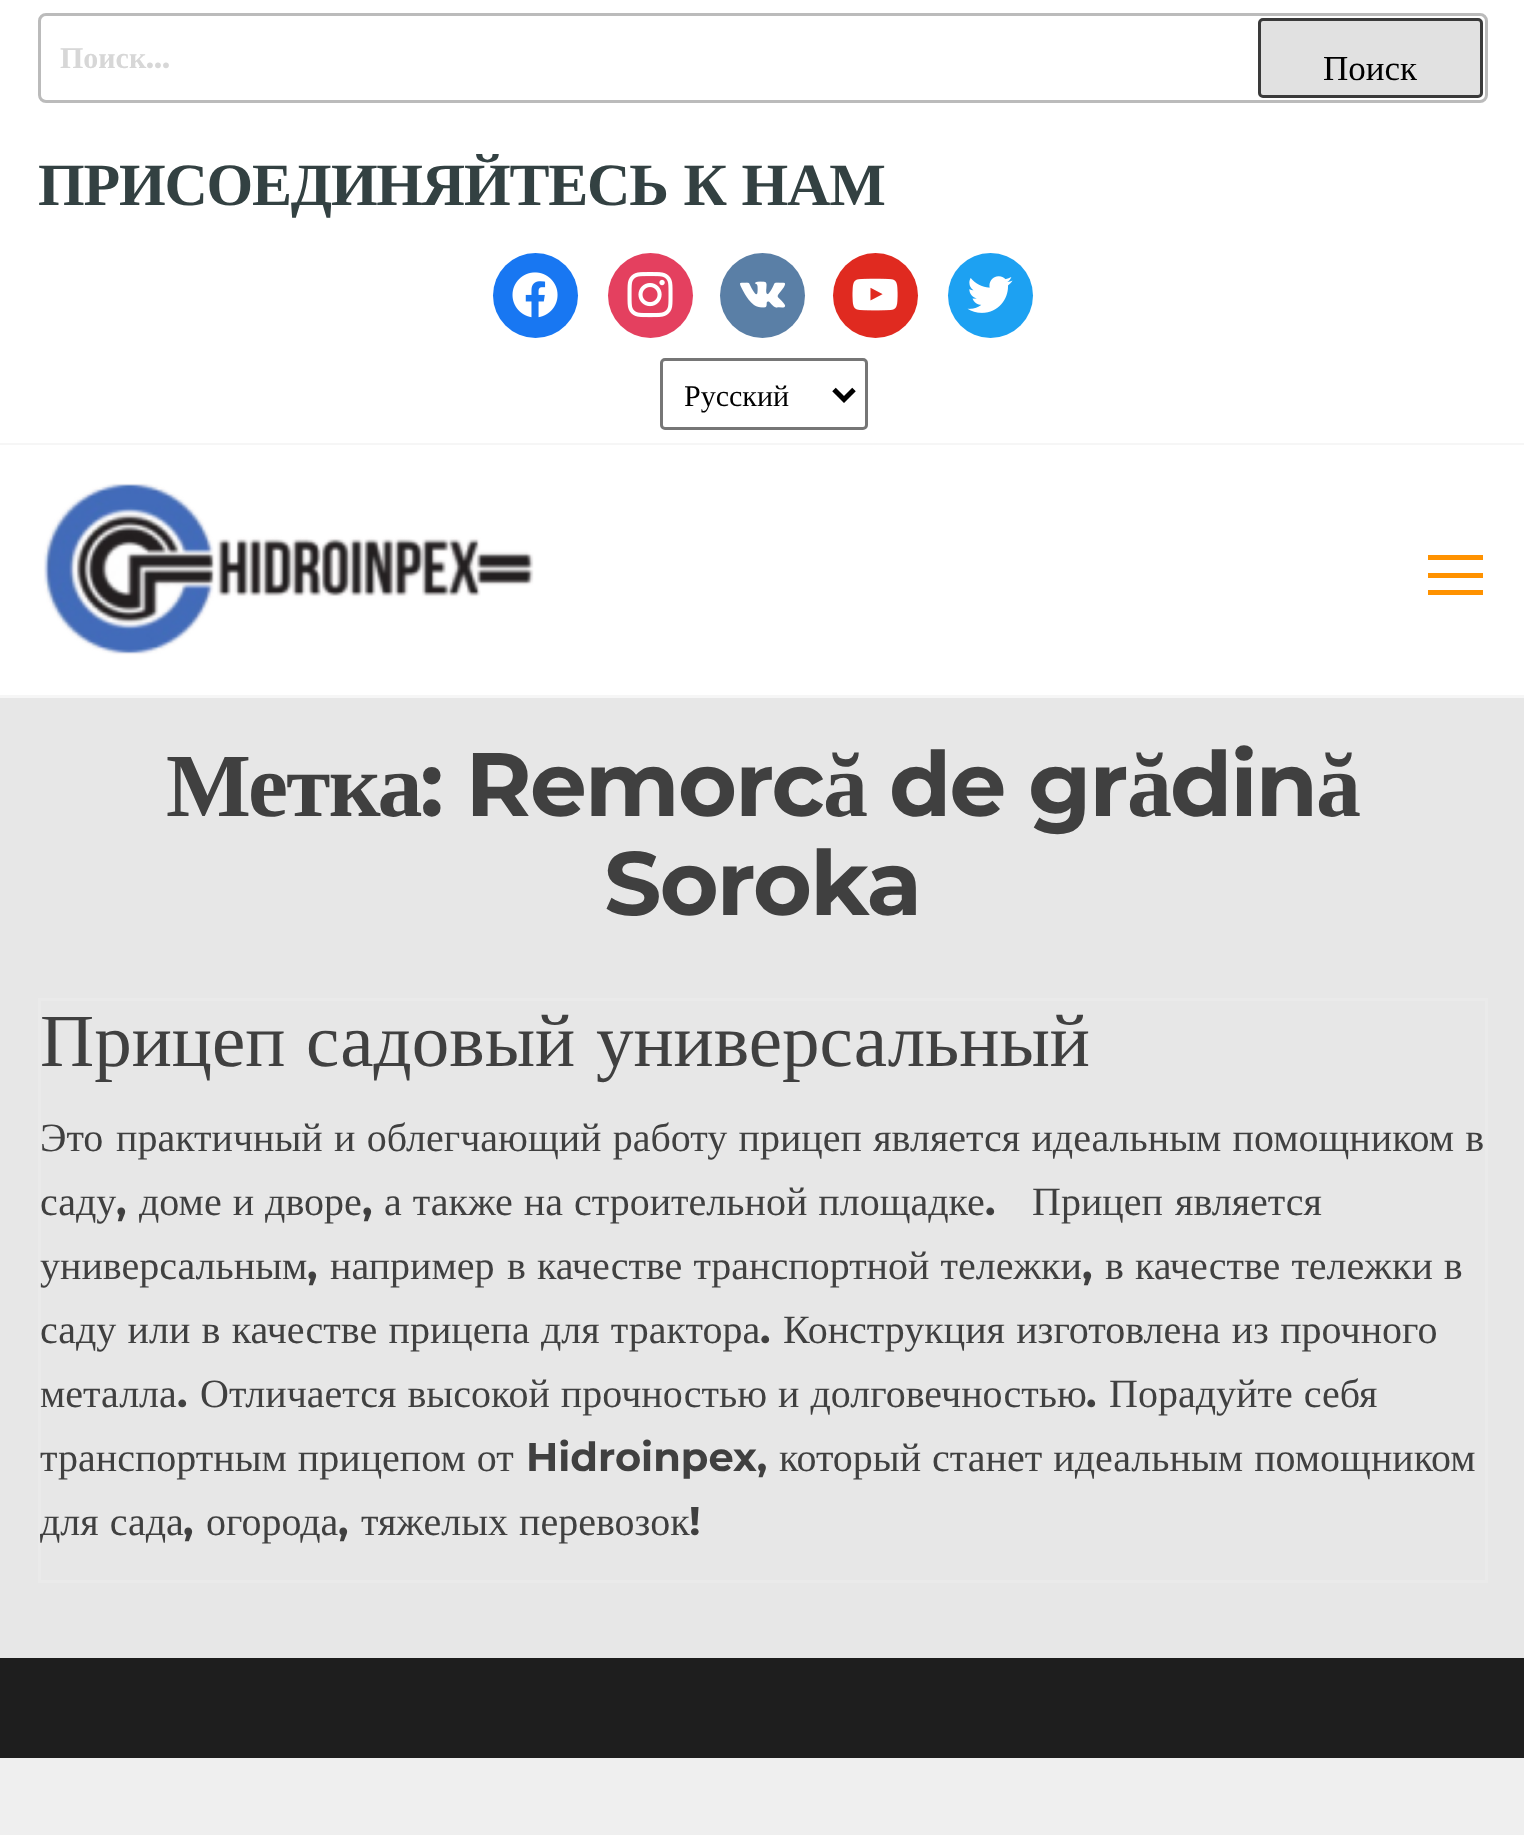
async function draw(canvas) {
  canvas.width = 1524;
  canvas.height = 1835;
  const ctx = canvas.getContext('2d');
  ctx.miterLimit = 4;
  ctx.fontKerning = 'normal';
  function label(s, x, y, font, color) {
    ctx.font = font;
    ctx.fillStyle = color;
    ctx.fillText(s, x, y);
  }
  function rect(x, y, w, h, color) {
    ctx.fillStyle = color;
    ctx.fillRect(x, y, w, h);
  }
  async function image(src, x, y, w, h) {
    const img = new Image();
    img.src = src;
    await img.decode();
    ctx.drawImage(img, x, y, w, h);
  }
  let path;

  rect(0, 0, 1524, 1835, '#efefef');
  rect(0, 0, 1524, 443, '#fff');
  rect(0, 443, 1524, 2, '#f6f6f6');
  ctx.beginPath();
  ctx.roundRect(39.5, 14.5, 1447, 87, 6.5);
  ctx.strokeStyle = '#bbb';
  ctx.lineWidth = 3;
  ctx.stroke();
  label('Поиск', 60, 68, 'bold 30px Liberation Serif', '#d7d7d7');
  label('…', 146, 68, 'bold 30px Montserrat', '#d7d7d7');
  ctx.fillStyle = '#e1e1e1';
  ctx.beginPath();
  ctx.roundRect(1259.5, 19.5, 222, 77, 3.5);
  ctx.fill();
  ctx.strokeStyle = '#3a3a3a';
  ctx.stroke();
  label('Поиск', 1323, 80, '35px Liberation Serif', '#000');
  ctx.letterSpacing = '-1.2px';
  ctx.wordSpacing = '2px';
  label('ПРИСОЕДИНЯЙТЕСЬ К НАМ', 38, 205, 'bold 60px Liberation Serif', '#334142');
  ctx.fillStyle = '#1877f2';
  ctx.beginPath();
  ctx.arc(535.5, 295.5, 42.5, 0, 2 * Math.PI);
  ctx.fill();
  await image('assets/img1.png', 512, 272, 46, 46);
  ctx.fillStyle = '#e4405f';
  ctx.beginPath();
  ctx.arc(650.5, 295.5, 42.5, 0, 2 * Math.PI);
  ctx.fill();
  await image('assets/img2.png', 627, 272, 46, 46);
  ctx.fillStyle = '#5a7fa6';
  ctx.beginPath();
  ctx.arc(762.5, 295.5, 42.5, 0, 2 * Math.PI);
  ctx.fill();
  await image('assets/img3.png', 740, 281, 46, 27);
  ctx.fillStyle = '#e02a20';
  ctx.beginPath();
  ctx.arc(875.5, 295.5, 42.5, 0, 2 * Math.PI);
  ctx.fill();
  await image('assets/img4.png', 852, 278, 46, 33);
  ctx.fillStyle = '#1da1f2';
  ctx.beginPath();
  ctx.arc(990.5, 295.5, 42.5, 0, 2 * Math.PI);
  ctx.fill();
  await image('assets/img5.png', 967, 276, 46, 37);
  ctx.beginPath();
  ctx.roundRect(661.5, 359.5, 205, 69, 3.5);
  ctx.strokeStyle = '#767676';
  ctx.stroke();
  path = new Path2D('M834 389.5L844 399.5L854 389.5');
  ctx.strokeStyle = '#000';
  ctx.lineWidth = 5;
  ctx.stroke(path);
  ctx.save();
  ctx.beginPath();
  ctx.rect(685, 373, 128, 42);
  ctx.clip();
  ctx.letterSpacing = '0px';
  ctx.wordSpacing = '0px';
  label('Русский', 684, 406, '30px Liberation Serif', '#000');
  ctx.restore();
  rect(0, 445, 1524, 250, '#fff');
  rect(0, 695, 1524, 3, '#f6f6f6');
  await image('assets/img6.png', 43, 483, 491, 172);
  rect(1428, 555, 55, 5, '#ff9200');
  rect(1428, 573, 55, 5, '#ff9200');
  rect(1428, 590, 55, 5, '#ff9200');
  rect(0, 698, 1524, 960, '#e7e7e7');
  ctx.letterSpacing = '-1.75px';
  ctx.wordSpacing = '0px';
  label('Метка', 166, 816, 'bold 90px Liberation Serif', '#404040');
  label(': Remorc', 420, 816, 'bold 90px Montserrat', '#404040');
  label('ă', 823, 816, 'bold 90px Liberation Serif', '#404040');
  label('de gr', 889, 816, 'bold 90px Montserrat', '#404040');
  label('ă', 1127, 816, 'bold 90px Liberation Serif', '#404040');
  label('din', 1170, 816, 'bold 90px Montserrat', '#404040');
  label('ă', 1316, 816, 'bold 90px Liberation Serif', '#404040');
  label('Soroka', 604, 915, 'bold 90px Montserrat', '#404040');
  ctx.strokeStyle = '#eaeaea';
  ctx.lineWidth = 3;
  ctx.strokeRect(39.5, 999.5, 1447, 582);
  ctx.letterSpacing = '0px';
  ctx.wordSpacing = '2px';
  label('Прицеп садовый универсальный', 40, 1066, '75px Liberation Serif', '#404040');
  ctx.wordSpacing = '0px';
  label('Это', 40, 1151, '40px Liberation Serif', '#404040');
  ctx.wordSpacing = '1.25px';
  label('практичный и облегчающий работу прицеп является идеальным помощником в', 116, 1151, '40px Liberation Serif', '#404040');
  ctx.wordSpacing = '0px';
  label('саду', 40, 1215, '40px Liberation Serif', '#404040');
  label(',', 116, 1215, 'bold 40px Montserrat', '#404040');
  ctx.wordSpacing = '1px';
  label('доме и дворе', 139, 1215, '40px Liberation Serif', '#404040');
  ctx.wordSpacing = '0px';
  label(',', 362, 1215, 'bold 40px Montserrat', '#404040');
  ctx.wordSpacing = '1px';
  label('а также на строительной площадке', 384, 1215, '40px Liberation Serif', '#404040');
  ctx.wordSpacing = '0px';
  label('.', 985, 1215, 'bold 40px Montserrat', '#404040');
  label('Прицеп', 1032, 1215, '40px Liberation Serif', '#404040');
  label('является', 1175, 1215, '40px Liberation Serif', '#404040');
  label('универсальным', 40, 1279, '40px Liberation Serif', '#404040');
  label(',', 307, 1279, 'bold 40px Montserrat', '#404040');
  label('например', 330, 1279, '40px Liberation Serif', '#404040');
  ctx.wordSpacing = '1px';
  label('в качестве транспортной тележки', 507, 1279, '40px Liberation Serif', '#404040');
  ctx.wordSpacing = '0px';
  label(',', 1082, 1279, 'bold 40px Montserrat', '#404040');
  ctx.wordSpacing = '1px';
  label('в качестве тележки в', 1105, 1279, '40px Liberation Serif', '#404040');
  ctx.wordSpacing = '1.25px';
  label('саду или в качестве прицепа для трактора', 40, 1343, '40px Liberation Serif', '#404040');
  ctx.wordSpacing = '0px';
  label('.', 760, 1343, 'bold 40px Montserrat', '#404040');
  ctx.wordSpacing = '1.25px';
  label('Конструкция изготовлена из прочного', 783, 1343, '40px Liberation Serif', '#404040');
  ctx.wordSpacing = '0px';
  label('металла', 40, 1407, '40px Liberation Serif', '#404040');
  label('.', 177, 1407, 'bold 40px Montserrat', '#404040');
  ctx.wordSpacing = '1px';
  label('Отличается высокой прочностью и долговечностью', 200, 1407, '40px Liberation Serif', '#404040');
  ctx.wordSpacing = '0px';
  label('.', 1086, 1407, 'bold 40px Montserrat', '#404040');
  ctx.wordSpacing = '1px';
  label('Порадуйте себя', 1109, 1407, '40px Liberation Serif', '#404040');
  label('транспортным прицепом от', 40, 1471, '40px Liberation Serif', '#404040');
  ctx.wordSpacing = '0px';
  label('Hidroinpex,', 526, 1471, 'bold 40px Montserrat', '#404040');
  ctx.wordSpacing = '1px';
  label('который станет идеальным помощником', 779, 1471, '40px Liberation Serif', '#404040');
  label('для сада', 40, 1535, '40px Liberation Serif', '#404040');
  ctx.wordSpacing = '0px';
  label(',', 183, 1535, 'bold 40px Montserrat', '#404040');
  label('огорода', 206, 1535, '40px Liberation Serif', '#404040');
  label(',', 338, 1535, 'bold 40px Montserrat', '#404040');
  ctx.wordSpacing = '1px';
  label('тяжелых перевозок', 361, 1535, '40px Liberation Serif', '#404040');
  ctx.wordSpacing = '0px';
  label('!', 689, 1535, 'bold 40px Montserrat', '#404040');
  rect(0, 1658, 1524, 100, '#1e1e1e');
}

draw(document.querySelector('canvas'));
